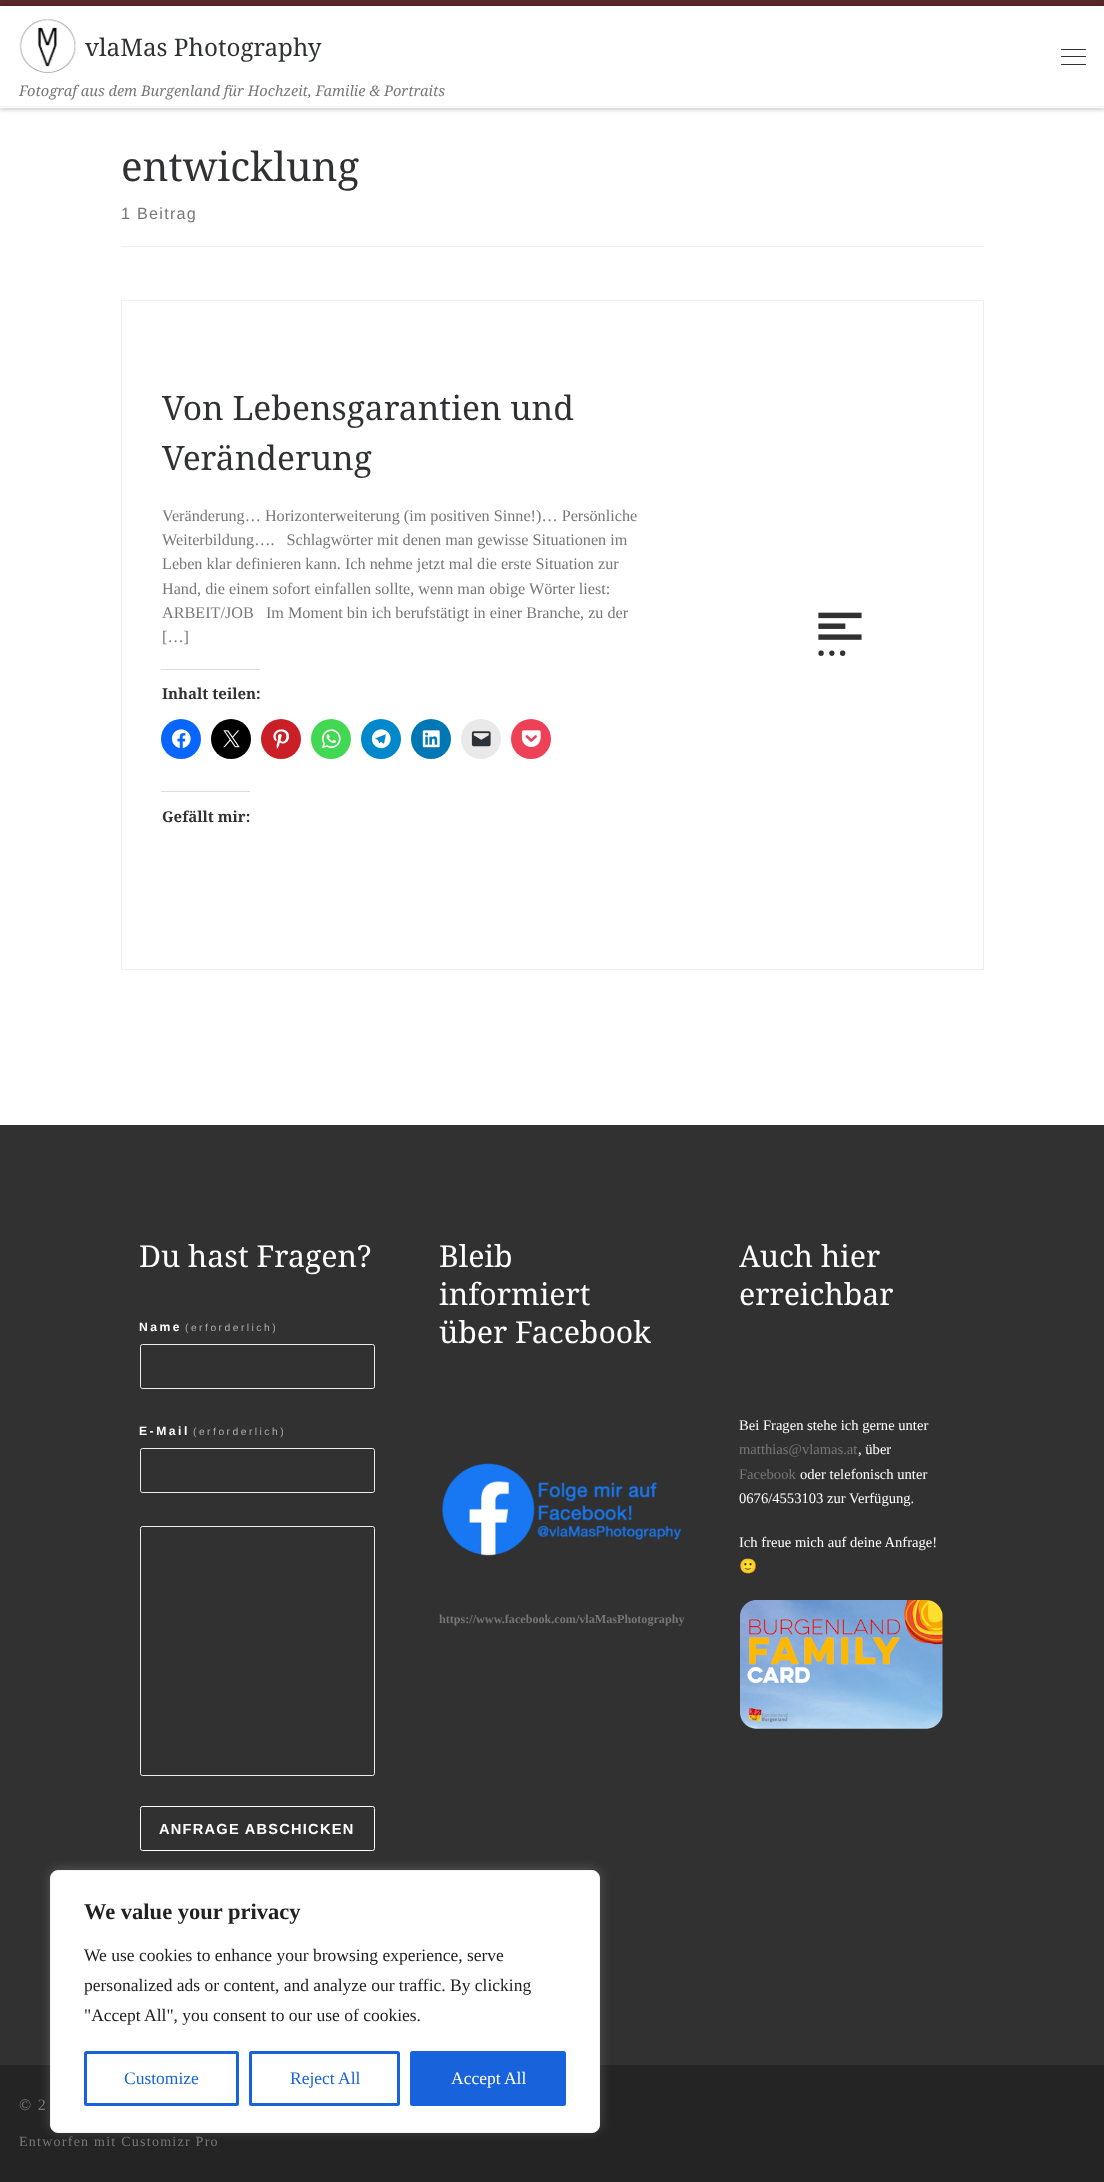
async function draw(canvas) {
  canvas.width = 1104;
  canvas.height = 2182;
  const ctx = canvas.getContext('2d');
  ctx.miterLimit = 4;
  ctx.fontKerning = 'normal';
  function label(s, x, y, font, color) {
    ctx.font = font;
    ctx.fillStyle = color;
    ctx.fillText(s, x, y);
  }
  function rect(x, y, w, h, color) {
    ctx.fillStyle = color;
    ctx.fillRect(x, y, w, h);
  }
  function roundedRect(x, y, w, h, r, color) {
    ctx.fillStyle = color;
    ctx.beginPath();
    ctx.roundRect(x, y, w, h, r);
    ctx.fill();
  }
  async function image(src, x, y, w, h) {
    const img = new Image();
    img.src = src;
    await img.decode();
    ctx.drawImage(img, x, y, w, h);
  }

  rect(0, 0, 1104, 2182, '#fff');
  ctx.fillStyle = '#66666614';
  ctx.filter = 'blur(1px)';
  ctx.beginPath();
  ctx.rect(0, 3, 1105, 108);
  ctx.fill();
  ctx.filter = 'none';
  rect(0, 0, 1104, 6, '#592929');
  rect(0, 108, 1104, 1, '#efefef');
  ctx.fillStyle = '#00000033';
  ctx.filter = 'blur(3px)';
  ctx.beginPath();
  ctx.rect(0, 6, 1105, 102);
  ctx.fill();
  ctx.filter = 'none';
  rect(0, 6, 1104, 102, '#fff');
  await image('assets/img1.png', 19, 19, 57, 54);
  label('vlaMas Photography', 85, 56, '24.25px Noto Serif', '#303133');
  label('Fotograf aus dem Burgenland für Hochzeit, Familie & Portraits', 19, 96, 'italic 14.6px Noto Serif', '#777');
  roundedRect(1061, 49, 25, 1, 0.5, '#313131');
  roundedRect(1061, 56, 25, 1, 0.5, '#313131');
  roundedRect(1061, 64, 25, 1, 0.5, '#313131');
  rect(0, 106, 1104, 1, '#f0f0f0');
  label('entwicklung', 121, 181, '40.25px Noto Serif', '#303133');
  ctx.letterSpacing = '1.25px';
  label('1 Beitrag', 121, 219, '16.2px Liberation Sans', '#777');
  rect(121, 246, 863, 1, '#eceeef');
  rect(161, 669, 99, 1, '#dcdcde');
  ctx.fillStyle = '#0866ff';
  ctx.beginPath();
  ctx.arc(181, 739, 20, 0, 2 * Math.PI);
  ctx.fill();
  await image('assets/img2.png', 171, 729, 20, 19);
  ctx.fillStyle = '#000';
  ctx.beginPath();
  ctx.arc(231, 739, 20, 0, 2 * Math.PI);
  ctx.fill();
  await image('assets/img3.png', 223, 730, 17, 18);
  ctx.fillStyle = '#ca1f27';
  ctx.beginPath();
  ctx.arc(281, 739, 20, 0, 2 * Math.PI);
  ctx.fill();
  await image('assets/img4.png', 273, 729, 17, 20);
  ctx.fillStyle = '#43d854';
  ctx.beginPath();
  ctx.arc(331, 739, 20, 0, 2 * Math.PI);
  ctx.fill();
  await image('assets/img5.png', 322, 729, 19, 19);
  ctx.fillStyle = '#08c';
  ctx.beginPath();
  ctx.arc(381, 739, 20, 0, 2 * Math.PI);
  ctx.fill();
  await image('assets/img6.png', 371, 729, 20, 20);
  ctx.fillStyle = '#0077b5';
  ctx.beginPath();
  ctx.arc(431, 739, 20, 0, 2 * Math.PI);
  ctx.fill();
  await image('assets/img7.png', 422, 730, 18, 18);
  ctx.fillStyle = '#e9e9e9';
  ctx.beginPath();
  ctx.arc(481, 739, 20, 0, 2 * Math.PI);
  ctx.fill();
  await image('assets/img8.png', 471, 731, 20, 16);
  ctx.fillStyle = '#ee4056';
  ctx.beginPath();
  ctx.arc(531, 739, 20, 0, 2 * Math.PI);
  ctx.fill();
  await image('assets/img9.png', 521, 730, 20, 17);
  rect(161, 791, 89, 1, '#dcdcde');
  await image('assets/img10.png', 818, 612, 44, 44);
  ctx.strokeStyle = '#efefef';
  ctx.strokeRect(121.5, 300.5, 862, 669);
  ctx.letterSpacing = '0px';
  label('Von Lebensgarantien und', 162, 420, '33.6px Noto Serif', '#303133');
  label('Veränderung', 162, 470, '33.6px Noto Serif', '#303133');
  label('Veränderung… Horizonterweiterung (im positiven Sinne!)… Persönliche', 162, 521, '16.2px Liberation Serif', '#777');
  label('Weiterbildung….   Schlagwörter mit denen man gewisse Situationen im', 162, 545, '16.2px Liberation Serif', '#777');
  label('Leben klar definieren kann. Ich nehme jetzt mal die erste Situation zur', 162, 569, '16.2px Liberation Serif', '#777');
  label('Hand, die einem sofort einfallen sollte, wenn man obige Wörter liest:', 162, 594, '16.2px Liberation Serif', '#777');
  label('ARBEIT/JOB   Im Moment bin ich berufstätigt in einer Branche, zu der', 162, 618, '16.2px Liberation Serif', '#777');
  label('[…]', 162, 642, '16.2px Liberation Serif', '#777');
  label('Inhalt teilen:', 162, 699, 'bold 15px Noto Serif', '#303133');
  label('Gefällt mir:', 162, 822, 'bold 15px Noto Serif', '#303133');
  rect(0, 1125, 1104, 940, '#313131');
  label('Du hast Fragen?', 139, 1267, '30.25px Noto Serif', '#fff');
  ctx.letterSpacing = '2.5px';
  label('Name', 139, 1331, 'bold 12.15px Liberation Sans', '#fff');
  label('(erforderlich)', 185, 1331, '10.25px Liberation Sans', '#adadad');
  ctx.beginPath();
  ctx.roundRect(140.5, 1344.5, 234, 44, 2);
  ctx.strokeStyle = '#eceeef';
  ctx.stroke();
  label('E-Mail', 139, 1435, 'bold 12.15px Liberation Sans', '#fff');
  label('(erforderlich)', 193, 1435, '10.25px Liberation Sans', '#adadad');
  ctx.beginPath();
  ctx.roundRect(140.5, 1448.5, 234, 44, 2);
  ctx.stroke();
  ctx.beginPath();
  ctx.roundRect(140.5, 1526.5, 234, 249, 2);
  ctx.stroke();
  ctx.beginPath();
  ctx.roundRect(140.5, 1806.5, 234, 44, 2);
  ctx.strokeStyle = '#fff';
  ctx.stroke();
  ctx.letterSpacing = '1.25px';
  label('ANFRAGE ABSCHICKEN', 159, 1834, 'bold 14.6px Liberation Sans', '#fff');
  ctx.letterSpacing = '0px';
  label('Bleib', 439, 1267, '30.25px Noto Serif', '#fff');
  label('informiert', 439, 1305, '30.25px Noto Serif', '#fff');
  label('über Facebook', 439, 1343, '30.25px Noto Serif', '#fff');
  await image('assets/img11.png', 442, 1463, 240, 93);
  label('https://www.facebook.com/vlaMasPhotography', 439, 1623, 'bold 12.15px Liberation Serif', '#777');
  label('Auch hier', 739, 1267, '30.25px Noto Serif', '#fff');
  label('erreichbar', 739, 1305, '30.25px Noto Serif', '#fff');
  label('Bei Fragen stehe ich gerne unter', 739, 1430, '14.6px Liberation Serif', '#fff');
  label('matthias@vlamas.at', 739, 1454, '14.6px Liberation Serif', '#777');
  label(', über', 858, 1454, '14.6px Liberation Serif', '#fff');
  label('Facebook', 739, 1479, '14.6px Liberation Serif', '#777');
  label('oder telefonisch unter', 800, 1479, '14.6px Liberation Serif', '#fff');
  label('0676/4553103 zur Verfügung.', 739, 1503, '14.6px Liberation Serif', '#fff');
  label('Ich freue mich auf deine Anfrage!', 739, 1547, '14.6px Liberation Serif', '#fff');
  label('🙂', 739, 1571, '14.6px Noto Color Emoji', '#fff');
  await image('assets/img12.png', 740, 1600, 203, 129);
  rect(0, 2065, 1104, 117, '#242424');
  ctx.letterSpacing = '1.25px';
  label('© 2', 19, 2110, '16px Liberation Serif', '#777');
  label('Entworfen mit Customizr Pro', 19, 2146, '14px Liberation Serif', '#777');
  ctx.fillStyle = '#acabab4d';
  ctx.filter = 'blur(6px)';
  ctx.beginPath();
  ctx.roundRect(50, 1869, 550, 262, 8);
  ctx.fill();
  ctx.filter = 'none';
  ctx.fillStyle = '#fff';
  ctx.beginPath();
  ctx.roundRect(50.5, 1870.5, 549, 262, 7.5);
  ctx.fill();
  ctx.strokeStyle = '#f4f4f4';
  ctx.stroke();
  ctx.letterSpacing = '0px';
  label('We value your privacy', 84, 1919, 'bold 22.5px Liberation Serif', '#212121');
  label('We use cookies to enhance your browsing experience, serve', 84, 1961, '17.5px Liberation Serif', '#212121');
  label('personalized ads or content, and analyze our traffic. By clicking', 84, 1991, '17.5px Liberation Serif', '#212121');
  label('"Accept All", you consent to our use of cookies.', 84, 2021, '17.5px Liberation Serif', '#212121');
  ctx.beginPath();
  ctx.roundRect(85.5, 2052.5, 152, 52, 1);
  ctx.strokeStyle = '#1863dc';
  ctx.lineWidth = 3;
  ctx.stroke();
  label('Customize', 124, 2084, '17.5px Liberation Serif', '#1863dc');
  ctx.beginPath();
  ctx.roundRect(250.5, 2052.5, 148, 52, 1);
  ctx.stroke();
  label('Reject All', 290, 2084, '17.5px Liberation Serif', '#1863dc');
  ctx.beginPath();
  ctx.roundRect(411.5, 2052.5, 153, 52, 1);
  ctx.fill();
  ctx.stroke();
  label('Accept All', 451, 2084, '17.5px Liberation Serif', '#fff');
}

draw(document.querySelector('canvas'));
